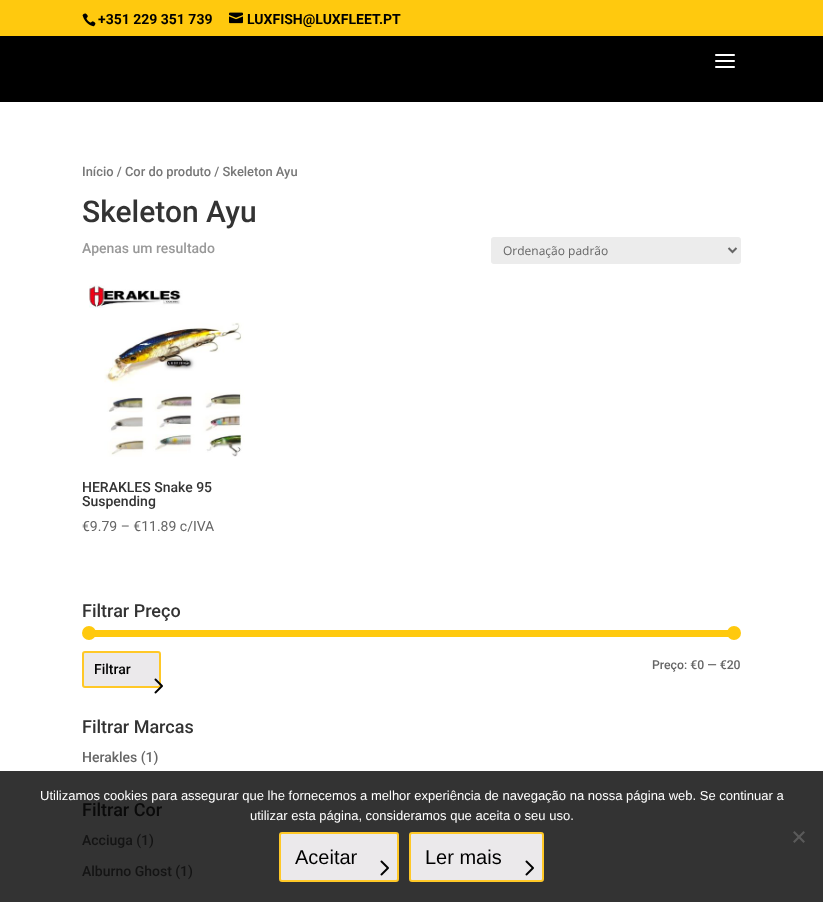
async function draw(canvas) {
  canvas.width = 823;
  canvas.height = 902;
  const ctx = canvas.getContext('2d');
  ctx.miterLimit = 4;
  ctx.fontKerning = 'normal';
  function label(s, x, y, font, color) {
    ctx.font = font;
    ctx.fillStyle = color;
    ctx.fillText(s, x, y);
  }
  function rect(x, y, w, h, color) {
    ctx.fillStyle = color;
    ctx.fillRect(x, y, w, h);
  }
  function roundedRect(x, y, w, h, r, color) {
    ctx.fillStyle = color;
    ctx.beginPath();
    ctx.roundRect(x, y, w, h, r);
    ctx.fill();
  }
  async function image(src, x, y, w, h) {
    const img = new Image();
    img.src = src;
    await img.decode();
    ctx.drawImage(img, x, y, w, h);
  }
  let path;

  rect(0, 0, 823, 902, '#ffc90e');
  await image('assets/img1.png', 82, 13, 14, 14);
  label('+351 229 351 739', 98, 24, 'bold 14px Roboto', '#000');
  await image('assets/img2.png', 229, 12, 14, 12);
  label('LUXFISH@LUXFLEET.PT', 247, 24, 'bold 14px Roboto', '#000');
  rect(0, 36, 823, 66, '#000');
  await image('assets/img3.png', 715, 54, 20, 14);
  rect(0, 102, 823, 669, '#fff');
  rect(0, 771, 823, 131, '#333');
  label('Início / Cor do produto / Skeleton Ayu', 82, 176, '500 12.9px Roboto', '#777');
  label('Skeleton Ayu', 82, 222, '500 30px Roboto', '#333');
  label('Apenas um resultado', 82, 253, '500 14px Roboto', '#999');
  roundedRect(491, 237, 250, 27, 3, '#ececec');
  path = new Path2D('M728.5 248L732.5 252L736.5 248');
  ctx.strokeStyle = '#666';
  ctx.lineWidth = 2;
  ctx.stroke(path);
  label('Ordenação padrão', 503, 255, '12px Open Sans', '#666');
  await image('assets/img4.png', 89, 285, 156, 172);
  label('HERAKLES Snake 95', 82, 492, '500 14px Roboto', '#333');
  label('Suspending', 82, 506, '500 14px Roboto', '#333');
  label('€9.79 – €11.89 c/IVA', 82, 531, '14px Roboto', '#666');
  label('Filtrar Preço', 82, 617, '500 18px Roboto', '#333');
  rect(89, 630, 645, 7, '#ffc90e');
  ctx.beginPath();
  ctx.arc(89, 633, 7, 0, 2 * Math.PI);
  ctx.fill();
  ctx.beginPath();
  ctx.arc(734, 633, 7, 0, 2 * Math.PI);
  ctx.fill();
  ctx.fillStyle = '#ebe9eb';
  ctx.beginPath();
  ctx.roundRect(83, 652, 77, 35, 2);
  ctx.fill();
  ctx.strokeStyle = '#ffc827';
  ctx.stroke();
  label('Filtrar', 94, 674, '500 14px Roboto', '#000');
  await image('assets/img5.png', 154, 678, 9, 16);
  label('Preço: €0 — €20', 652, 669, '500 12.25px Roboto', '#666');
  label('Filtrar Marcas', 82, 733, '500 18px Roboto', '#333');
  label('Herakles (1)', 82, 762, '500 14px Roboto', '#666');
  label('Filtrar Cor', 82, 816, '500 18px Roboto', '#0a0a0a');
  label('Acciuga (1)', 82, 845, '500 14px Roboto', '#141414');
  label('Alburno Ghost (1)', 82, 876, '500 14px Roboto', '#141414');
  label('Utilizamos cookies para assegurar que lhe fornecemos a melhor experiência de navegação na nossa página web. Se continuar a', 40, 800, '13px Liberation Sans', '#fff');
  label('utilizar esta página, consideramos que aceita o seu uso.', 250, 820, '13px Liberation Sans', '#fff');
  ctx.fillStyle = '#5a5a5a';
  path = new Path2D('M803.5 831L805 832.5L794.5 843L793 841.5Z');
  ctx.fill(path);
  path = new Path2D('M793 832.5L794.5 831L805 841.5L803.5 843Z');
  ctx.fill(path);
  ctx.fillStyle = '#ebe9eb';
  ctx.beginPath();
  ctx.roundRect(280, 833, 118, 48, 2);
  ctx.fill();
  ctx.stroke();
  label('Aceitar', 295, 864, '20px Liberation Sans', '#000');
  await image('assets/img6.png', 380, 860, 9, 16);
  ctx.fillStyle = '#ebe9eb';
  ctx.beginPath();
  ctx.roundRect(410, 833, 133, 48, 2);
  ctx.fill();
  ctx.stroke();
  label('Ler mais', 425, 864, '20px Liberation Sans', '#000');
  await image('assets/img6.png', 525, 860, 9, 16);
}

draw(document.querySelector('canvas'));
